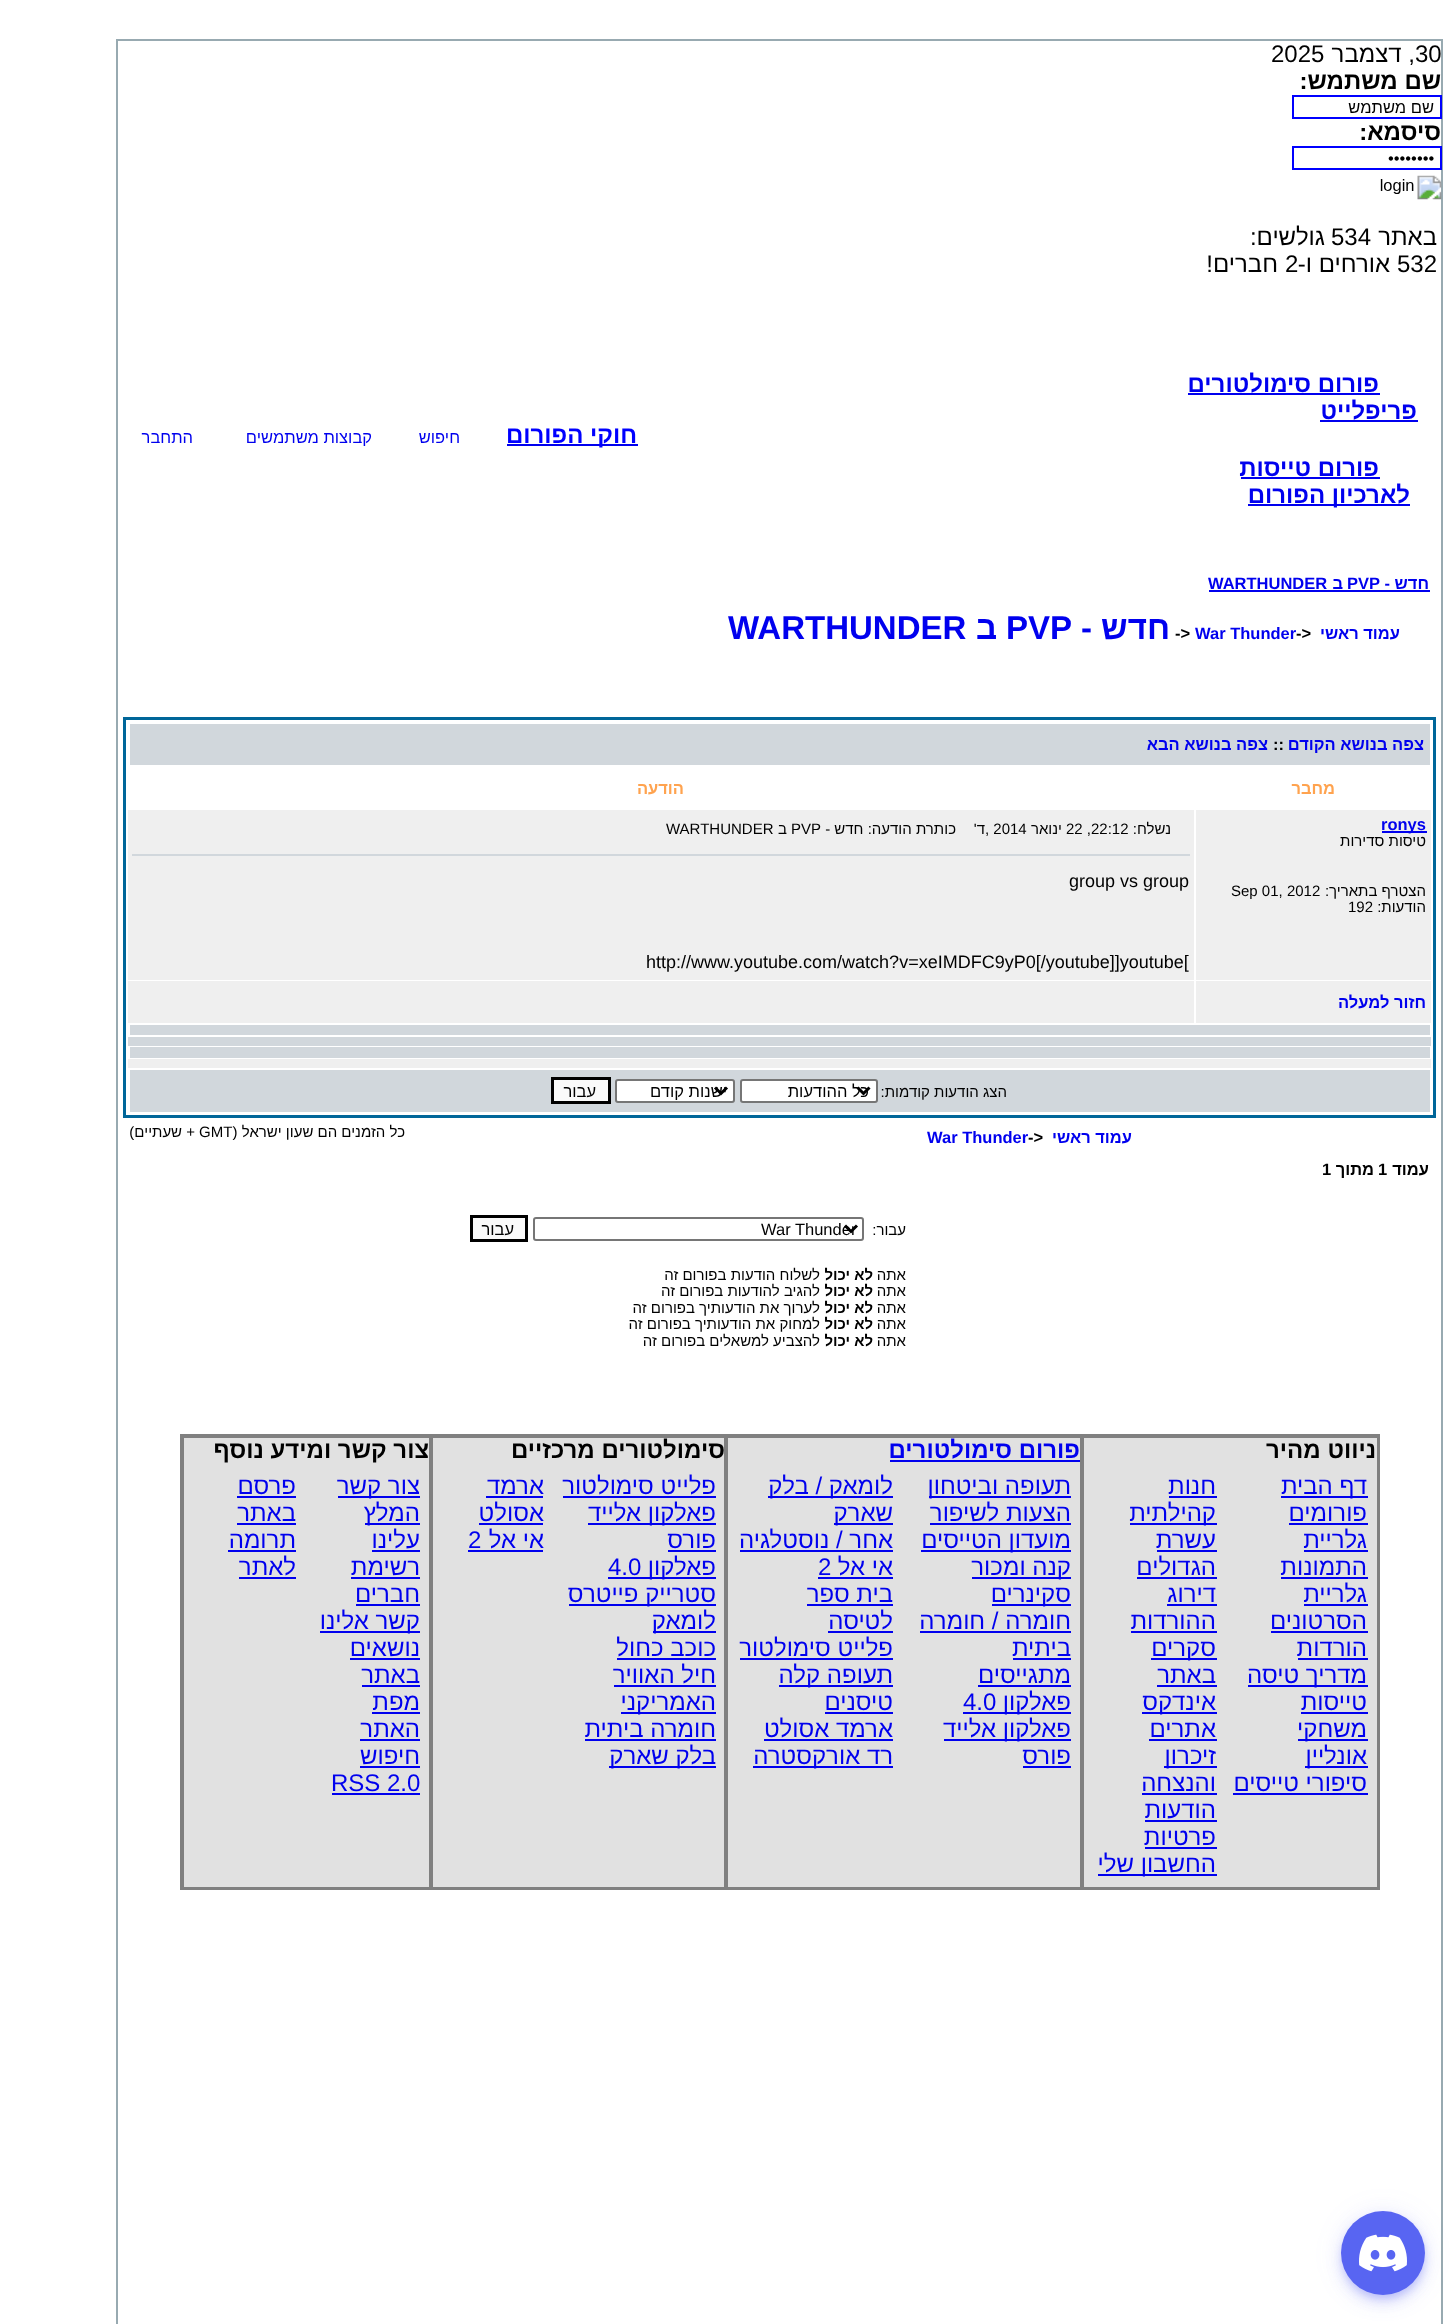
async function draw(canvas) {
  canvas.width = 1454;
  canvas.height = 2324;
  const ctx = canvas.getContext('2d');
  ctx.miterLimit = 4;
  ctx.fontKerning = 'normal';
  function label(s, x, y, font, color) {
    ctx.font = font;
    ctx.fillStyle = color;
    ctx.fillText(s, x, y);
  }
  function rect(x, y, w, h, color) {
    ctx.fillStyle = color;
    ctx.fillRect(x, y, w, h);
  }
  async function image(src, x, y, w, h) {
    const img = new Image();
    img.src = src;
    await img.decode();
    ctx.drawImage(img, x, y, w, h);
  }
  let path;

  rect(0, 0, 1454, 2324, '#fff');
  ctx.strokeStyle = '#98aab1';
  ctx.lineWidth = 2;
  ctx.strokeRect(117, 40, 1325, 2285);
  label('30', 1415, 62, '24px Liberation Sans', '#000');
  ctx.direction = 'rtl';
  label(', דצמבר', 1415, 62, '24px Liberation Sans', '#000');
  ctx.direction = 'ltr';
  label('2025', 1271, 62, '24px Liberation Sans', '#000');
  ctx.direction = 'rtl';
  label('שם משתמש:', 1441, 89, 'bold 24px Liberation Sans', '#000');
  ctx.strokeStyle = '#00f';
  ctx.strokeRect(1293, 96, 148, 22);
  label('שם משתמש', 1434, 113, '16.5px Liberation Sans', '#000');
  label('סיסמא:', 1441, 140, 'bold 24px Liberation Sans', '#000');
  ctx.strokeRect(1293, 147, 148, 22);
  ctx.direction = 'ltr';
  label('••••••••', 1388, 164, '16.5px Liberation Sans', '#000');
  await image('assets/img1.png', 1380, 175, 62, 25);
  ctx.direction = 'rtl';
  label('באתר', 1437, 245, '24px Liberation Sans', '#000');
  ctx.direction = 'ltr';
  label('534', 1331, 245, '24px Liberation Sans', '#000');
  ctx.direction = 'rtl';
  label('גולשים:', 1325, 245, '24px Liberation Sans', '#000');
  ctx.direction = 'ltr';
  label('532', 1397, 272, '24px Liberation Sans', '#000');
  ctx.direction = 'rtl';
  label('אורחים ו-', 1390, 272, '24px Liberation Sans', '#000');
  ctx.direction = 'ltr';
  label('2', 1285, 272, '24px Liberation Sans', '#000');
  ctx.direction = 'rtl';
  label('חברים!', 1278, 272, '24px Liberation Sans', '#000');
  label('פורום סימולטורים', 1379, 392, 'bold 24px Liberation Sans', '#00e');
  rect(1188, 393, 192, 2, '#00e');
  label('פריפלייט', 1417, 419, 'bold 24px Liberation Sans', '#00e');
  rect(1320, 420, 98, 2, '#00e');
  label('פורום טייסות', 1379, 476, 'bold 24px Liberation Sans', '#00e');
  rect(1241, 477, 139, 2, '#00e');
  rect(1248, 504, 162, 2, '#00e');
  label('לארכיון הפורום', 1410, 503, 'bold 24px Liberation Sans', '#00e');
  rect(507, 444, 131, 2, '#00e');
  label('חוקי הפורום', 637, 443, 'bold 24px Liberation Sans', '#00f');
  label('חיפוש', 460, 443, '16.5px Liberation Sans', '#00e');
  label('קבוצות משתמשים', 372, 443, '16.5px Liberation Sans', '#00e');
  label('התחבר', 193, 443, '16.5px Liberation Sans', '#00e');
  label('חדש -', 1429, 589, 'bold 16.5px Liberation Sans', '#00e');
  rect(1209, 590, 221, 2, '#00e');
  ctx.direction = 'ltr';
  label('PVP', 1347, 589, 'bold 16.5px Liberation Sans', '#00e');
  ctx.direction = 'rtl';
  label('ב', 1343, 589, 'bold 16.5px Liberation Sans', '#00e');
  ctx.direction = 'ltr';
  label('WARTHUNDER', 1208, 589, 'bold 16.5px Liberation Sans', '#00e');
  ctx.direction = 'rtl';
  label('עמוד ראשי', 1400, 639, 'bold 16.5px Liberation Sans', '#00e');
  ctx.direction = 'ltr';
  label('->', 1296, 639, 'bold 16.5px Liberation Sans', '#000');
  label('War Thunder', 1195, 639, 'bold 16.5px Liberation Sans', '#00e');
  label('->', 1175, 639, 'bold 16.5px Liberation Sans', '#000');
  ctx.direction = 'rtl';
  label('חדש -', 1170, 639, 'bold 33px Liberation Sans', '#00e');
  ctx.direction = 'ltr';
  label('PVP', 1006, 639, 'bold 33px Liberation Sans', '#00e');
  ctx.direction = 'rtl';
  label('ב', 997, 639, 'bold 33px Liberation Sans', '#00e');
  ctx.direction = 'ltr';
  label('WARTHUNDER', 728, 639, 'bold 33px Liberation Sans', '#00e');
  ctx.strokeStyle = '#069';
  ctx.lineWidth = 3;
  ctx.strokeRect(124.5, 718.5, 1310, 398);
  rect(130, 724, 1300, 41, '#d1d7dc');
  ctx.direction = 'rtl';
  label('צפה בנושא הקודם', 1424, 750, 'bold 16.5px Liberation Sans', '#00e');
  ctx.direction = 'ltr';
  label('::', 1273, 750, 'bold 16.5px Liberation Sans', '#000');
  ctx.direction = 'rtl';
  label('צפה בנושא הבא', 1268, 750, 'bold 16.5px Liberation Sans', '#00e');
  label('מחבר', 1335, 794, 'bold 16.5px Liberation Sans', '#ffa34f');
  label('הודעה', 684, 794, 'bold 16.5px Liberation Sans', '#ffa34f');
  rect(1196, 810, 235, 170, '#efefef');
  rect(1382, 831, 45, 2, '#00e');
  ctx.direction = 'ltr';
  label('ronys', 1381, 830, 'bold 16.5px Liberation Sans', '#00e');
  ctx.direction = 'rtl';
  label('טיסות סדירות', 1426, 846, '15px Liberation Sans', '#000');
  label('הצטרף בתאריך:', 1426, 896, '15px Liberation Sans', '#000');
  ctx.direction = 'ltr';
  label('Sep 01, 2012', 1231, 896, '15px Liberation Sans', '#000');
  ctx.direction = 'rtl';
  label('הודעות:', 1426, 912, '15px Liberation Sans', '#000');
  ctx.direction = 'ltr';
  label('192', 1348, 912, '15px Liberation Sans', '#000');
  rect(128, 810, 1066, 170, '#efefef');
  ctx.direction = 'rtl';
  label('נשלח:', 1171, 834, '15px Liberation Sans', '#000');
  ctx.direction = 'ltr';
  label('22 ,22:12', 1066, 834, '15px Liberation Sans', '#000');
  ctx.direction = 'rtl';
  label('ינואר', 1062, 834, '15px Liberation Sans', '#000');
  ctx.direction = 'ltr';
  label(', 2014', 985, 834, '15px Liberation Sans', '#000');
  ctx.direction = 'rtl';
  label('ד\'', 985, 834, '15px Liberation Sans', '#000');
  label('כותרת הודעה: חדש -', 956, 834, '15px Liberation Sans', '#000');
  ctx.direction = 'ltr';
  label('PVP', 791, 834, '15px Liberation Sans', '#000');
  ctx.direction = 'rtl';
  label('ב', 787, 834, '15px Liberation Sans', '#000');
  ctx.direction = 'ltr';
  label('WARTHUNDER', 666, 834, '15px Liberation Sans', '#000');
  rect(132, 854, 1058, 2, '#d1d7dc');
  label('group vs group', 1069, 887, '18px Liberation Sans', '#000');
  label('http://www.youtube.com/watch?v=xeIMDFC9yP0[/youtube]]youtube[', 646, 968, '18px Liberation Sans', '#000');
  rect(1196, 981, 235, 42, '#efefef');
  ctx.direction = 'rtl';
  label('חזור למעלה', 1426, 1008, 'bold 16.5px Liberation Sans', '#00e');
  rect(128, 981, 1066, 42, '#efefef');
  rect(130, 1025, 1300, 10, '#d1d7dc');
  rect(128, 1037, 1303, 9, '#d1d7dc');
  rect(130, 1047, 1300, 11, '#d1d7dc');
  rect(128, 1059, 1303, 9, '#efefef');
  rect(130, 1070, 1300, 42, '#d1d7dc');
  label('הצג הודעות קודמות:', 1007, 1097, '15px Liberation Sans', '#000');
  ctx.fillStyle = '#fff';
  ctx.beginPath();
  ctx.roundRect(741, 1080, 136, 22, 2);
  ctx.fill();
  ctx.strokeStyle = '#767676';
  ctx.lineWidth = 2;
  ctx.stroke();
  path = new Path2D('M857.5 1087.5L863.5 1093.5L869.5 1087.5');
  ctx.strokeStyle = '#000';
  ctx.lineWidth = 3;
  ctx.stroke(path);
  label('כל ההודעות', 869, 1097, '16.5px Liberation Sans', '#000');
  ctx.fillStyle = '#fff';
  ctx.beginPath();
  ctx.roundRect(616, 1080, 118, 22, 2);
  ctx.fill();
  ctx.strokeStyle = '#767676';
  ctx.lineWidth = 2;
  ctx.stroke();
  path = new Path2D('M715 1087.5L721 1093.5L727 1087.5');
  ctx.strokeStyle = '#000';
  ctx.lineWidth = 3;
  ctx.stroke(path);
  label('ישנות קודם', 727, 1097, '16.5px Liberation Sans', '#000');
  ctx.fillStyle = '#fafafa';
  ctx.beginPath();
  ctx.rect(552.5, 1078.5, 57, 24);
  ctx.fill();
  ctx.stroke();
  label('עבור', 596, 1097, '16.5px Liberation Sans', '#000');
  label('עמוד ראשי', 1132, 1143, 'bold 16.5px Liberation Sans', '#00e');
  ctx.direction = 'ltr';
  label('->', 1028, 1143, 'bold 16.5px Liberation Sans', '#000');
  label('War Thunder', 927, 1143, 'bold 16.5px Liberation Sans', '#00e');
  label('GMT', 199, 1137, '15px Liberation Sans', '#000');
  ctx.direction = 'rtl';
  label('כל הזמנים הם שעון ישראל (', 405, 1137, '15px Liberation Sans', '#000');
  label('+ שעתיים)', 195, 1137, '15px Liberation Sans', '#000');
  label('עמוד', 1429, 1175, 'bold 16.5px Liberation Sans', '#000');
  ctx.direction = 'ltr';
  label('1', 1378, 1175, 'bold 16.5px Liberation Sans', '#000');
  ctx.direction = 'rtl';
  label('מתוך', 1374, 1175, 'bold 16.5px Liberation Sans', '#000');
  ctx.direction = 'ltr';
  label('1', 1322, 1175, 'bold 16.5px Liberation Sans', '#000');
  ctx.direction = 'rtl';
  label('עבור:', 906, 1235, '15px Liberation Sans', '#000');
  ctx.beginPath();
  ctx.roundRect(534, 1218, 329, 22, 2);
  ctx.strokeStyle = '#767676';
  ctx.lineWidth = 2;
  ctx.stroke();
  path = new Path2D('M845 1225.5L851 1231.5L857 1225.5');
  ctx.strokeStyle = '#000';
  ctx.lineWidth = 3;
  ctx.stroke(path);
  ctx.direction = 'ltr';
  label('War Thunder', 761, 1235, '16.5px Liberation Sans', '#000');
  ctx.fillStyle = '#fafafa';
  ctx.beginPath();
  ctx.rect(471.5, 1216.5, 55, 24);
  ctx.fill();
  ctx.stroke();
  ctx.direction = 'rtl';
  label('עבור', 514, 1235, '16.5px Liberation Sans', '#000');
  label('אתה', 906, 1280, '15px Liberation Sans', '#000');
  label('לא יכול', 873, 1280, 'bold 15px Liberation Sans', '#000');
  label('לשלוח הודעות בפורום זה', 820, 1280, '15px Liberation Sans', '#000');
  label('אתה', 906, 1296, '15px Liberation Sans', '#000');
  label('לא יכול', 873, 1296, 'bold 15px Liberation Sans', '#000');
  label('להגיב להודעות בפורום זה', 820, 1296, '15px Liberation Sans', '#000');
  label('אתה', 906, 1313, '15px Liberation Sans', '#000');
  label('לא יכול', 873, 1313, 'bold 15px Liberation Sans', '#000');
  label('לערוך את הודעותיך בפורום זה', 820, 1313, '15px Liberation Sans', '#000');
  label('אתה', 906, 1329, '15px Liberation Sans', '#000');
  label('לא יכול', 873, 1329, 'bold 15px Liberation Sans', '#000');
  label('למחוק את הודעותיך בפורום זה', 820, 1329, '15px Liberation Sans', '#000');
  label('אתה', 906, 1346, '15px Liberation Sans', '#000');
  label('לא יכול', 873, 1346, 'bold 15px Liberation Sans', '#000');
  label('להצביע למשאלים בפורום זה', 820, 1346, '15px Liberation Sans', '#000');
  rect(184, 1438, 1193, 449, '#e1e1e1');
  ctx.strokeStyle = '#808080';
  ctx.lineWidth = 2;
  ctx.strokeRect(181, 1435, 1198, 454);
  ctx.strokeRect(1083, 1437, 295, 451);
  label('ניווט מהיר', 1376, 1458, 'bold 24px Liberation Sans', '#000');
  rect(1281, 1496, 87, 2, '#00e');
  label('דף הבית', 1367, 1494, '24px Liberation Sans', '#00e');
  label('פורומים', 1367, 1521, '24px Liberation Sans', '#00e');
  rect(1289, 1523, 79, 2, '#00e');
  label('גלריית', 1367, 1548, '24px Liberation Sans', '#00e');
  rect(1304, 1550, 64, 2, '#00e');
  label('התמונות', 1367, 1575, '24px Liberation Sans', '#00e');
  rect(1281, 1577, 87, 2, '#00e');
  label('גלריית', 1367, 1602, '24px Liberation Sans', '#00e');
  rect(1304, 1604, 64, 2, '#00e');
  label('הסרטונים', 1367, 1629, '24px Liberation Sans', '#00e');
  rect(1271, 1631, 97, 2, '#00e');
  label('הורדות', 1367, 1656, '24px Liberation Sans', '#00e');
  rect(1298, 1658, 70, 2, '#00e');
  rect(1248, 1685, 120, 2, '#00e');
  label('מדריך טיסה', 1367, 1683, '24px Liberation Sans', '#00e');
  label('טייסות', 1367, 1710, '24px Liberation Sans', '#00e');
  rect(1301, 1712, 67, 2, '#00e');
  rect(1298, 1739, 70, 2, '#00e');
  label('משחקי', 1367, 1737, '24px Liberation Sans', '#00e');
  rect(1305, 1766, 63, 2, '#00e');
  label('אונליין', 1367, 1764, '24px Liberation Sans', '#00e');
  label('סיפורי טייסים', 1367, 1791, '24px Liberation Sans', '#00e');
  rect(1233, 1793, 135, 2, '#00e');
  label('חנות', 1216, 1494, '24px Liberation Sans', '#00e');
  rect(1169, 1496, 48, 2, '#00e');
  rect(1130, 1523, 87, 2, '#00e');
  label('קהילתית', 1216, 1521, '24px Liberation Sans', '#00e');
  label('עשרת', 1216, 1548, '24px Liberation Sans', '#00e');
  rect(1157, 1550, 60, 2, '#00e');
  label('הגדולים', 1216, 1575, '24px Liberation Sans', '#00e');
  rect(1137, 1577, 80, 2, '#00e');
  label('דירוג', 1216, 1602, '24px Liberation Sans', '#00e');
  rect(1167, 1604, 50, 2, '#00e');
  label('ההורדות', 1216, 1629, '24px Liberation Sans', '#00e');
  rect(1131, 1631, 86, 2, '#00e');
  rect(1151, 1658, 66, 2, '#00e');
  label('סקרים', 1216, 1656, '24px Liberation Sans', '#00e');
  label('באתר', 1216, 1683, '24px Liberation Sans', '#00e');
  rect(1157, 1685, 60, 2, '#00e');
  rect(1142, 1712, 75, 2, '#00e');
  label('אינדקס', 1216, 1710, '24px Liberation Sans', '#00e');
  label('אתרים', 1216, 1737, '24px Liberation Sans', '#00e');
  rect(1149, 1739, 68, 2, '#00e');
  rect(1164, 1766, 53, 2, '#00e');
  label('זיכרון', 1216, 1764, '24px Liberation Sans', '#00e');
  label('והנצחה', 1216, 1791, '24px Liberation Sans', '#00e');
  rect(1142, 1793, 75, 2, '#00e');
  label('הודעות', 1216, 1818, '24px Liberation Sans', '#00e');
  rect(1145, 1820, 72, 2, '#00e');
  label('פרטיות', 1216, 1845, '24px Liberation Sans', '#00e');
  rect(1145, 1847, 72, 2, '#00e');
  rect(1098, 1874, 119, 2, '#00e');
  label('החשבון שלי', 1216, 1872, '24px Liberation Sans', '#00e');
  ctx.strokeRect(727, 1437, 354, 451);
  label('פורום סימולטורים', 1080, 1458, 'bold 24px Liberation Sans', '#00e');
  rect(890, 1460, 190, 2, '#00e');
  rect(929, 1496, 142, 2, '#00e');
  label('תעופה וביטחון', 1071, 1494, '24px Liberation Sans', '#00e');
  label('הצעות לשיפור', 1071, 1521, '24px Liberation Sans', '#00e');
  rect(930, 1523, 141, 2, '#00e');
  rect(921, 1550, 150, 2, '#00e');
  label('מועדון הטייסים', 1071, 1548, '24px Liberation Sans', '#00e');
  rect(972, 1577, 99, 2, '#00e');
  label('קנה ומכור', 1071, 1575, '24px Liberation Sans', '#00e');
  rect(992, 1604, 79, 2, '#00e');
  label('סקינרים', 1071, 1602, '24px Liberation Sans', '#00e');
  label('חומרה / חומרה', 1071, 1629, '24px Liberation Sans', '#00e');
  rect(920, 1631, 151, 2, '#00e');
  label('ביתית', 1071, 1656, '24px Liberation Sans', '#00e');
  rect(1013, 1658, 58, 2, '#00e');
  label('מתגייסים', 1071, 1683, '24px Liberation Sans', '#00e');
  rect(978, 1685, 93, 2, '#00e');
  rect(963, 1712, 108, 2, '#00e');
  label('פאלקון', 1071, 1710, '24px Liberation Sans', '#00e');
  ctx.direction = 'ltr';
  label('4.0', 963, 1710, '24px Liberation Sans', '#00e');
  rect(944, 1739, 127, 2, '#00e');
  ctx.direction = 'rtl';
  label('פאלקון אלייד', 1071, 1737, '24px Liberation Sans', '#00e');
  label('פורס', 1071, 1764, '24px Liberation Sans', '#00e');
  rect(1023, 1766, 48, 2, '#00e');
  rect(768, 1496, 125, 2, '#00e');
  label('לומאק / בלק', 893, 1494, '24px Liberation Sans', '#00e');
  rect(834, 1523, 59, 2, '#00e');
  label('שארק', 893, 1521, '24px Liberation Sans', '#00e');
  label('אחר / נוסטלגיה', 893, 1548, '24px Liberation Sans', '#00e');
  rect(740, 1550, 153, 2, '#00e');
  label('אי אל', 893, 1575, '24px Liberation Sans', '#00e');
  ctx.direction = 'ltr';
  label('2', 818, 1575, '24px Liberation Sans', '#00e');
  rect(818, 1577, 75, 2, '#00e');
  ctx.direction = 'rtl';
  label('בית ספר', 893, 1602, '24px Liberation Sans', '#00e');
  rect(807, 1604, 86, 2, '#00e');
  label('לטיסה', 893, 1629, '24px Liberation Sans', '#00e');
  rect(828, 1631, 65, 2, '#00e');
  label('פלייט סימולטור', 893, 1656, '24px Liberation Sans', '#00e');
  rect(740, 1658, 153, 2, '#00e');
  rect(779, 1685, 114, 2, '#00e');
  label('תעופה קלה', 893, 1683, '24px Liberation Sans', '#00e');
  label('טיסנים', 893, 1710, '24px Liberation Sans', '#00e');
  rect(825, 1712, 68, 2, '#00e');
  label('ארמד אסולט', 893, 1737, '24px Liberation Sans', '#00e');
  rect(764, 1739, 129, 2, '#00e');
  rect(753, 1766, 140, 2, '#00e');
  label('רד אורקסטרה', 893, 1764, '24px Liberation Sans', '#00e');
  ctx.strokeRect(432, 1437, 293, 451);
  label('סימולטורים מרכזיים', 725, 1458, 'bold 24px Liberation Sans', '#000');
  label('פלייט סימולטור', 716, 1494, '24px Liberation Sans', '#00e');
  rect(563, 1496, 153, 2, '#00e');
  rect(588, 1523, 128, 2, '#00e');
  label('פאלקון אלייד', 716, 1521, '24px Liberation Sans', '#00e');
  label('פורס', 716, 1548, '24px Liberation Sans', '#00e');
  rect(668, 1550, 48, 2, '#00e');
  rect(608, 1577, 108, 2, '#00e');
  label('פאלקון', 716, 1575, '24px Liberation Sans', '#00e');
  ctx.direction = 'ltr';
  label('4.0', 608, 1575, '24px Liberation Sans', '#00e');
  rect(569, 1604, 147, 2, '#00e');
  ctx.direction = 'rtl';
  label('סטרייק פייטרס', 716, 1602, '24px Liberation Sans', '#00e');
  rect(653, 1631, 63, 2, '#00e');
  label('לומאק', 716, 1629, '24px Liberation Sans', '#00e');
  label('כוכב כחול', 716, 1656, '24px Liberation Sans', '#00e');
  rect(617, 1658, 99, 2, '#00e');
  label('חיל האוויר', 716, 1683, '24px Liberation Sans', '#00e');
  rect(614, 1685, 102, 2, '#00e');
  rect(621, 1712, 95, 2, '#00e');
  label('האמריקני', 716, 1710, '24px Liberation Sans', '#00e');
  label('חומרה ביתית', 716, 1737, '24px Liberation Sans', '#00e');
  rect(585, 1739, 131, 2, '#00e');
  rect(609, 1766, 107, 2, '#00e');
  label('בלק שארק', 716, 1764, '24px Liberation Sans', '#00e');
  label('ארמד', 544, 1494, '24px Liberation Sans', '#00e');
  rect(486, 1496, 57, 2, '#00e');
  label('אסולט', 544, 1521, '24px Liberation Sans', '#00e');
  rect(479, 1523, 64, 2, '#00e');
  label('אי אל', 544, 1548, '24px Liberation Sans', '#00e');
  ctx.direction = 'ltr';
  label('2', 468, 1548, '24px Liberation Sans', '#00e');
  rect(468, 1550, 75, 2, '#00e');
  ctx.strokeRect(183, 1437, 247, 451);
  ctx.direction = 'rtl';
  label('צור קשר ומידע נוסף', 429, 1458, 'bold 24px Liberation Sans', '#000');
  rect(338, 1496, 82, 2, '#00e');
  label('צור קשר', 420, 1494, '24px Liberation Sans', '#00e');
  rect(365, 1523, 55, 2, '#00e');
  label('המלץ', 420, 1521, '24px Liberation Sans', '#00e');
  label('עלינו', 420, 1548, '24px Liberation Sans', '#00e');
  rect(372, 1550, 48, 2, '#00e');
  label('רשימת', 420, 1575, '24px Liberation Sans', '#00e');
  rect(351, 1577, 69, 2, '#00e');
  label('חברים', 420, 1602, '24px Liberation Sans', '#00e');
  rect(356, 1604, 64, 2, '#00e');
  rect(320, 1631, 100, 2, '#00e');
  label('קשר אלינו', 420, 1629, '24px Liberation Sans', '#00e');
  label('נושאים', 420, 1656, '24px Liberation Sans', '#00e');
  rect(350, 1658, 70, 2, '#00e');
  label('באתר', 420, 1683, '24px Liberation Sans', '#00e');
  rect(362, 1685, 58, 2, '#00e');
  label('מפת', 420, 1710, '24px Liberation Sans', '#00e');
  rect(372, 1712, 48, 2, '#00e');
  label('האתר', 420, 1737, '24px Liberation Sans', '#00e');
  rect(360, 1739, 60, 2, '#00e');
  label('חיפוש', 420, 1764, '24px Liberation Sans', '#00e');
  rect(360, 1766, 60, 2, '#00e');
  ctx.direction = 'ltr';
  label('RSS 2.0', 331, 1791, '24px Liberation Sans', '#00e');
  rect(332, 1793, 88, 2, '#00e');
  ctx.direction = 'rtl';
  label('פרסם', 296, 1494, '24px Liberation Sans', '#00e');
  rect(237, 1496, 59, 2, '#00e');
  label('באתר', 296, 1521, '24px Liberation Sans', '#00e');
  rect(237, 1523, 59, 2, '#00e');
  label('תרומה', 296, 1548, '24px Liberation Sans', '#00e');
  rect(228, 1550, 68, 2, '#00e');
  label('לאתר', 296, 1575, '24px Liberation Sans', '#00e');
  rect(239, 1577, 57, 2, '#00e');
  ctx.fillStyle = '#5865f21f';
  ctx.filter = 'blur(13.5px)';
  ctx.beginPath();
  ctx.roundRect(1341, 2213, 84, 84, 42);
  ctx.fill();
  ctx.filter = 'none';
  ctx.fillStyle = '#5865f224';
  ctx.filter = 'blur(7.5px)';
  ctx.beginPath();
  ctx.roundRect(1341, 2220, 84, 84, 42);
  ctx.fill();
  ctx.filter = 'none';
  ctx.fillStyle = '#5865f24d';
  ctx.filter = 'blur(4px)';
  ctx.beginPath();
  ctx.roundRect(1343, 2217, 81, 81, 40.5);
  ctx.fill();
  ctx.filter = 'none';
  ctx.fillStyle = '#5865f2';
  ctx.beginPath();
  ctx.arc(1383, 2253, 42, 0, 2 * Math.PI);
  ctx.fill();
  await image('assets/img2.png', 1359, 2234, 48, 38);
}

draw(document.querySelector('canvas'));
